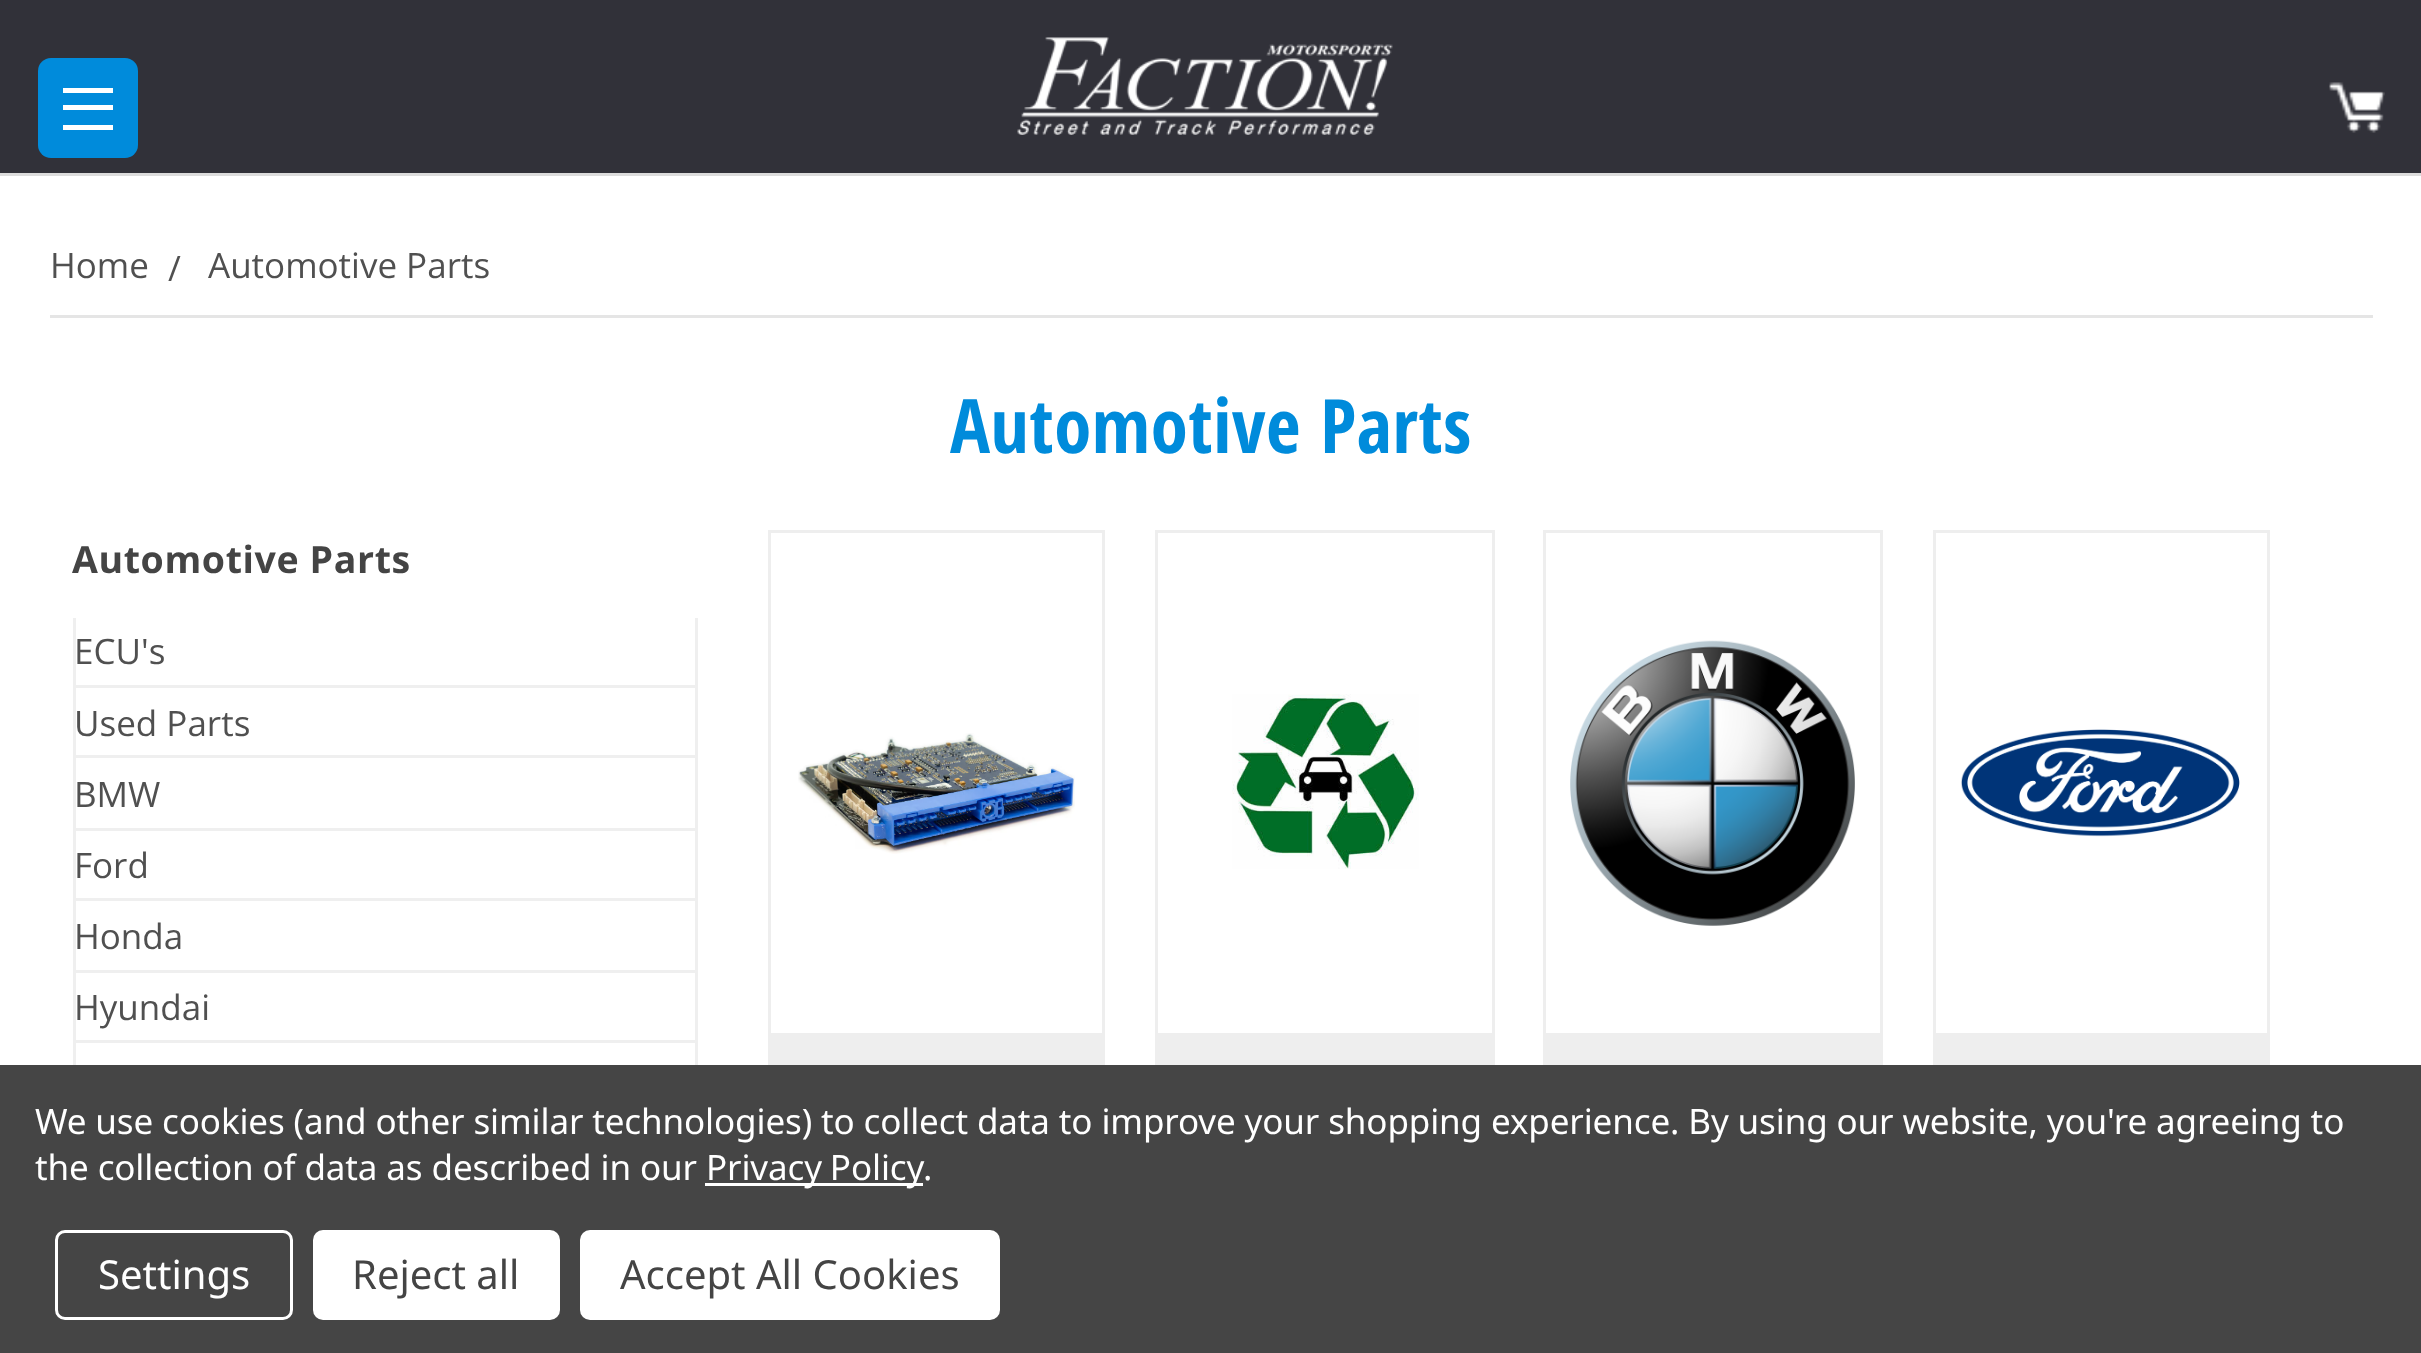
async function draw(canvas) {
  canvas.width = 2421;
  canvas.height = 1353;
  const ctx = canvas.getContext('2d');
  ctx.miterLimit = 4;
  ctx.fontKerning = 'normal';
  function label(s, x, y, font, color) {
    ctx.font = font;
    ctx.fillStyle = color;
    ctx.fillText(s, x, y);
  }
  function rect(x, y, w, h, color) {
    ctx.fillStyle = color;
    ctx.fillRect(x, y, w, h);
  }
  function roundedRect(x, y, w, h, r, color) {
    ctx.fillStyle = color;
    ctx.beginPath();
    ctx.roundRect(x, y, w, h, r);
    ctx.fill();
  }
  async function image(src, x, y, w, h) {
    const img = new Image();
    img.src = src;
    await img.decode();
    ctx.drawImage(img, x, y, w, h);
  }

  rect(0, 0, 2421, 1353, '#fff');
  rect(0, 173, 2421, 3, '#dcdcdc');
  rect(0, 0, 2421, 173, '#313139');
  await image('assets/img1.png', 1017, 37, 376, 98);
  roundedRect(38, 58, 100, 100, 13, '#008bdb');
  rect(63, 105, 50, 5, '#fff');
  rect(63, 88, 50, 5, '#fff');
  rect(63, 125, 50, 5, '#fff');
  await image('assets/img2.png', 2329, 82, 56, 51);
  rect(50, 315, 2323, 3, '#e5e5e5');
  label('Home', 50, 278, '35px Open Sans', '#505050');
  label('/', 168, 281, '35px Open Sans', '#505050');
  label('Automotive Parts', 208, 278, '35px Open Sans', '#505050');
  ctx.letterSpacing = '0.6px';
  label('Automotive Parts', 950, 453, 'bold 75px Open Sans Condensed', '#008bdb');
  label('Automotive Parts', 72, 573, 'bold 37.5px Open Sans', '#444');
  rect(695, 618, 3, 447, '#efefef');
  rect(73, 618, 3, 447, '#efefef');
  rect(75, 685, 620, 3, '#efefef');
  ctx.letterSpacing = '0px';
  label('ECU\'s', 74, 664, '35px Open Sans', '#505050');
  rect(75, 755, 620, 3, '#efefef');
  label('Used Parts', 74, 736, '35px Open Sans', '#505050');
  rect(75, 828, 620, 3, '#efefef');
  label('BMW', 74, 807, '35px Open Sans', '#505050');
  rect(75, 898, 620, 3, '#efefef');
  label('Ford', 74, 878, '35px Open Sans', '#505050');
  rect(75, 970, 620, 3, '#efefef');
  label('Honda', 74, 949, '35px Open Sans', '#505050');
  rect(75, 1040, 620, 3, '#efefef');
  label('Hyundai', 74, 1020, '35px Open Sans', '#505050');
  ctx.strokeStyle = '#eee';
  ctx.lineWidth = 3;
  ctx.strokeRect(769.5, 531.5, 334, 652);
  await image('assets/img3.png', 798, 733, 277, 121);
  rect(771, 1033, 331, 32, '#eee');
  ctx.strokeRect(1156.5, 531.5, 337, 652);
  await image('assets/img4.png', 1232, 694, 187, 175);
  rect(1158, 1033, 334, 32, '#eee');
  ctx.strokeRect(1544.5, 531.5, 337, 652);
  await image('assets/img5.png', 1570, 640, 285, 286);
  rect(1546, 1033, 334, 32, '#eee');
  ctx.strokeRect(1934.5, 531.5, 334, 652);
  await image('assets/img6.png', 1961, 729, 279, 108);
  rect(1936, 1033, 331, 32, '#eee');
  rect(0, 1065, 2421, 288, '#454545');
  ctx.letterSpacing = '-0.12px';
  label('We use cookies (and other similar technologies) to collect data to improve your shopping experience. By using our website, you\'re agreeing to', 35, 1134, '35px Noto Sans', '#fff');
  label('the collection of data as described in our', 35, 1180, '35px Noto Sans', '#fff');
  rect(705, 1183, 218, 3, '#fff');
  ctx.wordSpacing = '-1px';
  label('Privacy Policy', 706, 1180, '35px Noto Sans', '#fff');
  ctx.wordSpacing = '0px';
  label('.', 923, 1180, '35px Noto Sans', '#fff');
  ctx.beginPath();
  ctx.roundRect(56.5, 1231.5, 235, 87, 8.5);
  ctx.strokeStyle = '#fff';
  ctx.stroke();
  ctx.letterSpacing = '0px';
  label('Settings', 98, 1289, '40px Noto Sans', '#fff');
  roundedRect(313, 1230, 247, 90, 10, '#fff');
  label('Reject all', 352, 1289, '40px Noto Sans', '#444');
  roundedRect(580, 1230, 420, 90, 10, '#fff');
  label('Accept All Cookies', 620, 1289, '40px Noto Sans', '#444');
}

draw(document.querySelector('canvas'));
